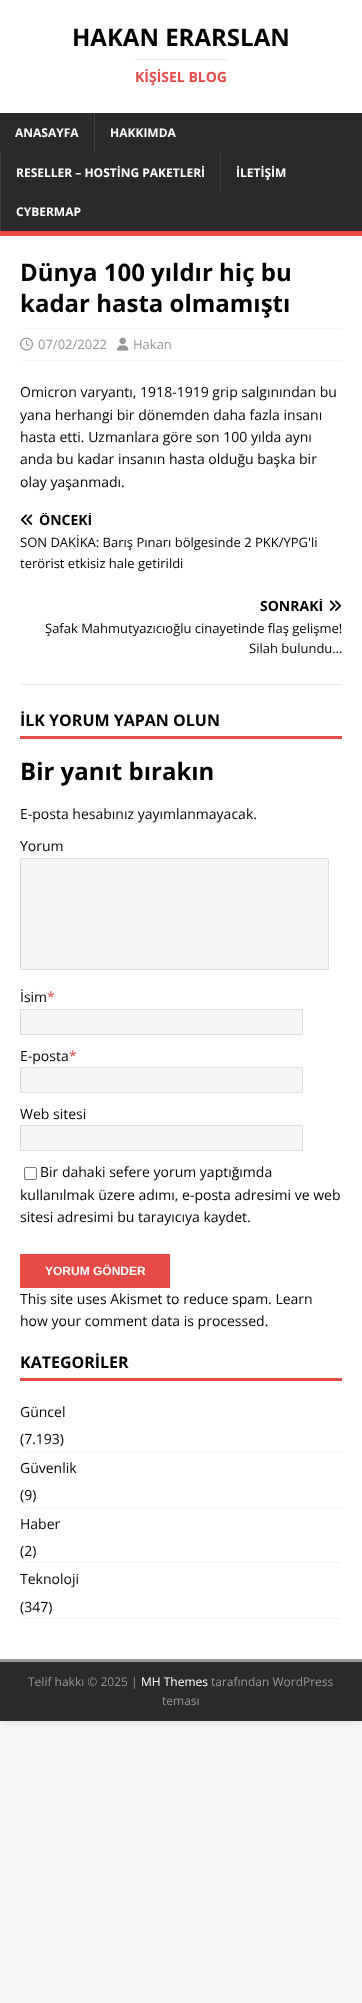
async function draw(canvas) {
  canvas.width = 362;
  canvas.height = 2003;
  const ctx = canvas.getContext('2d');
  ctx.miterLimit = 4;
  ctx.fontKerning = 'normal';
  function label(s, x, y, font, color) {
    ctx.font = font;
    ctx.fillStyle = color;
    ctx.fillText(s, x, y);
  }
  function rect(x, y, w, h, color) {
    ctx.fillStyle = color;
    ctx.fillRect(x, y, w, h);
  }
  async function image(src, x, y, w, h) {
    const img = new Image();
    img.src = src;
    await img.decode();
    ctx.drawImage(img, x, y, w, h);
  }
  let path;

  rect(0, 0, 362, 2003, '#f7f7f7');
  ctx.fillStyle = '#3232322b';
  ctx.filter = 'blur(5px)';
  ctx.beginPath();
  ctx.rect(0, 0, 362, 1721);
  ctx.fill();
  ctx.filter = 'none';
  rect(0, 0, 362, 113, '#fff');
  label('HAKAN ERARSLAN', 72, 46, 'bold 24px Open Sans', '#000');
  rect(135, 59, 92, 1, '#e5e5e5');
  label('KİŞİSEL BLOG', 135, 82, 'bold 14px Open Sans', '#e64946');
  rect(0, 113, 362, 118, '#2a2a2a');
  rect(0, 231, 362, 5, '#e64946');
  label('ANASAYFA', 15, 137, 'bold 12px Open Sans', '#fff');
  rect(94, 113, 1, 40, '#3f3f3f');
  label('HAKKIMDA', 110, 137, 'bold 12px Open Sans', '#fff');
  rect(0, 153, 1, 78, '#3f3f3f');
  label('RESELLER – HOSTİNG PAKETLERİ', 16, 177, 'bold 12px Open Sans', '#fff');
  rect(220, 153, 1, 39, '#3f3f3f');
  label('İLETİŞİM', 236, 177, 'bold 12px Open Sans', '#fff');
  label('CYBERMAP', 16, 216, 'bold 12px Open Sans', '#fff');
  rect(0, 236, 362, 1423, '#fff');
  label('Dünya 100 yıldır hiç bu', 20, 281, 'bold 24px Open Sans', '#000');
  label('kadar hasta olmamıştı', 20, 312, 'bold 24px Open Sans', '#000');
  path = new Path2D('M20 328.5H342');
  ctx.strokeStyle = '#ebebeb';
  ctx.setLineDash([1, 1]);
  ctx.stroke(path);
  path = new Path2D('M20 360.5H342');
  ctx.stroke(path);
  await image('assets/img1.png', 20, 337, 13, 14);
  label('07/02/2022', 38, 349, '13px Open Sans', '#979797');
  await image('assets/img2.png', 117, 337, 12, 14);
  label('Hakan', 133, 349, '13px Open Sans', '#979797');
  label('Omicron varyantı, 1918-1919 grip salgınından bu', 20, 397, '14px Open Sans', '#000');
  label('yana herhangi bir dönemden daha fazla insanı', 20, 420, '14px Open Sans', '#000');
  label('hasta etti. Uzmanlara göre son 100 yılda aynı', 20, 442, '14px Open Sans', '#000');
  label('anda bu kadar insanın hasta olduğu başka bir', 20, 464, '14px Open Sans', '#000');
  label('olay yaşanmadı.', 20, 487, '14px Open Sans', '#000');
  rect(20, 684, 322, 1, '#ebebeb');
  await image('assets/img3.png', 20, 514, 13, 11);
  ctx.save();
  ctx.beginPath();
  ctx.rect(20, 513, 322, 14);
  ctx.clip();
  label('ÖNCEKİ', 39, 525, 'bold 14px Open Sans', '#000');
  ctx.restore();
  label('SON DAKİKA: Barış Pınarı bölgesinde 2 PKK/YPG\'li', 20, 547, '13px Open Sans', '#000');
  label('terörist etkisiz hale getirildi', 20, 568, '13px Open Sans', '#000');
  ctx.save();
  ctx.beginPath();
  ctx.rect(20, 599, 322, 14);
  ctx.clip();
  label('SONRAKİ', 260, 611, 'bold 14px Open Sans', '#000');
  ctx.restore();
  await image('assets/img4.png', 329, 600, 13, 11);
  label('Şafak Mahmutyazıcıoğlu cinayetinde flaş gelişme!', 45, 633, '13px Open Sans', '#000');
  label('Silah bulundu…', 249, 653, '13px Open Sans', '#000');
  rect(20, 736, 322, 3, '#e64946');
  label('İLK YORUM YAPAN OLUN', 20, 726, 'bold 16px Open Sans', '#000');
  label('Bir yanıt bırakın', 20, 780, 'bold 24px Open Sans', '#000');
  label('E-posta hesabınız yayımlanmayacak.', 20, 819, '14px Open Sans', '#000');
  label('Yorum', 20, 851, '14px Open Sans', '#000');
  ctx.fillStyle = '#f5f5f5';
  ctx.beginPath();
  ctx.rect(20.5, 858.5, 308, 111);
  ctx.fill();
  ctx.strokeStyle = '#ddd';
  ctx.setLineDash([]);
  ctx.stroke();
  label('İsim', 20, 1002, '14px Open Sans', '#000');
  label('*', 47, 1002, '14px Open Sans', '#e64946');
  ctx.fillStyle = '#f5f5f5';
  ctx.beginPath();
  ctx.rect(20.5, 1009.5, 282, 25);
  ctx.fill();
  ctx.stroke();
  label('E-posta', 20, 1061, '14px Open Sans', '#000');
  label('*', 69, 1061, '14px Open Sans', '#e64946');
  ctx.fillStyle = '#f5f5f5';
  ctx.beginPath();
  ctx.rect(20.5, 1067.5, 282, 25);
  ctx.fill();
  ctx.stroke();
  label('Web sitesi', 20, 1119, '14px Open Sans', '#000');
  ctx.fillStyle = '#f5f5f5';
  ctx.beginPath();
  ctx.rect(20.5, 1125.5, 282, 25);
  ctx.fill();
  ctx.stroke();
  ctx.beginPath();
  ctx.roundRect(24.5, 1167.5, 12, 12, 1.5);
  ctx.strokeStyle = '#767676';
  ctx.stroke();
  label('Bir dahaki sefere yorum yaptığımda', 40, 1177, '14px Open Sans', '#000');
  label('kullanılmak üzere adımı, e-posta adresimi ve web', 20, 1200, '14px Open Sans', '#000');
  label('sitesi adresimi bu tarayıcıya kaydet.', 20, 1222, '14px Open Sans', '#000');
  rect(20, 1254, 150, 34, '#e64946');
  label('YORUM GÖNDER', 45, 1275, 'bold 12px Liberation Sans', '#fff');
  label('This site uses Akismet to reduce spam. Learn', 20, 1304, '14px Open Sans', '#000');
  label('how your comment data is processed.', 20, 1326, '14px Open Sans', '#000');
  rect(20, 1378, 322, 3, '#e64946');
  label('KATEGORİLER', 20, 1368, 'bold 16px Open Sans', '#000');
  path = new Path2D('M20 1451.5H342');
  ctx.strokeStyle = '#ebebeb';
  ctx.setLineDash([1, 1]);
  ctx.stroke(path);
  label('Güncel', 20, 1417, '14px Open Sans', '#000');
  label('(7.193)', 20, 1444, '14px Open Sans', '#000');
  path = new Path2D('M20 1507.5H342');
  ctx.stroke(path);
  label('Güvenlik', 20, 1473, '14px Open Sans', '#000');
  label('(9)', 20, 1500, '14px Open Sans', '#000');
  path = new Path2D('M20 1562.5H342');
  ctx.stroke(path);
  label('Haber', 20, 1529, '14px Open Sans', '#000');
  label('(2)', 20, 1556, '14px Open Sans', '#000');
  path = new Path2D('M20 1618.5H342');
  ctx.stroke(path);
  label('Teknoloji', 20, 1584, '14px Open Sans', '#000');
  label('(347)', 20, 1612, '14px Open Sans', '#000');
  rect(0, 1662, 362, 59, '#2a2a2a');
  rect(0, 1659, 362, 3, '#999');
  label('Telif hakkı © 2025 |', 28, 1686, '12px Open Sans', '#979797');
  label('MH Themes', 141, 1686, '12px Open Sans', '#fff');
  label('tarafından WordPress', 211, 1686, '12px Open Sans', '#979797');
  label('teması', 162, 1705, '12px Open Sans', '#979797');
}

draw(document.querySelector('canvas'));
